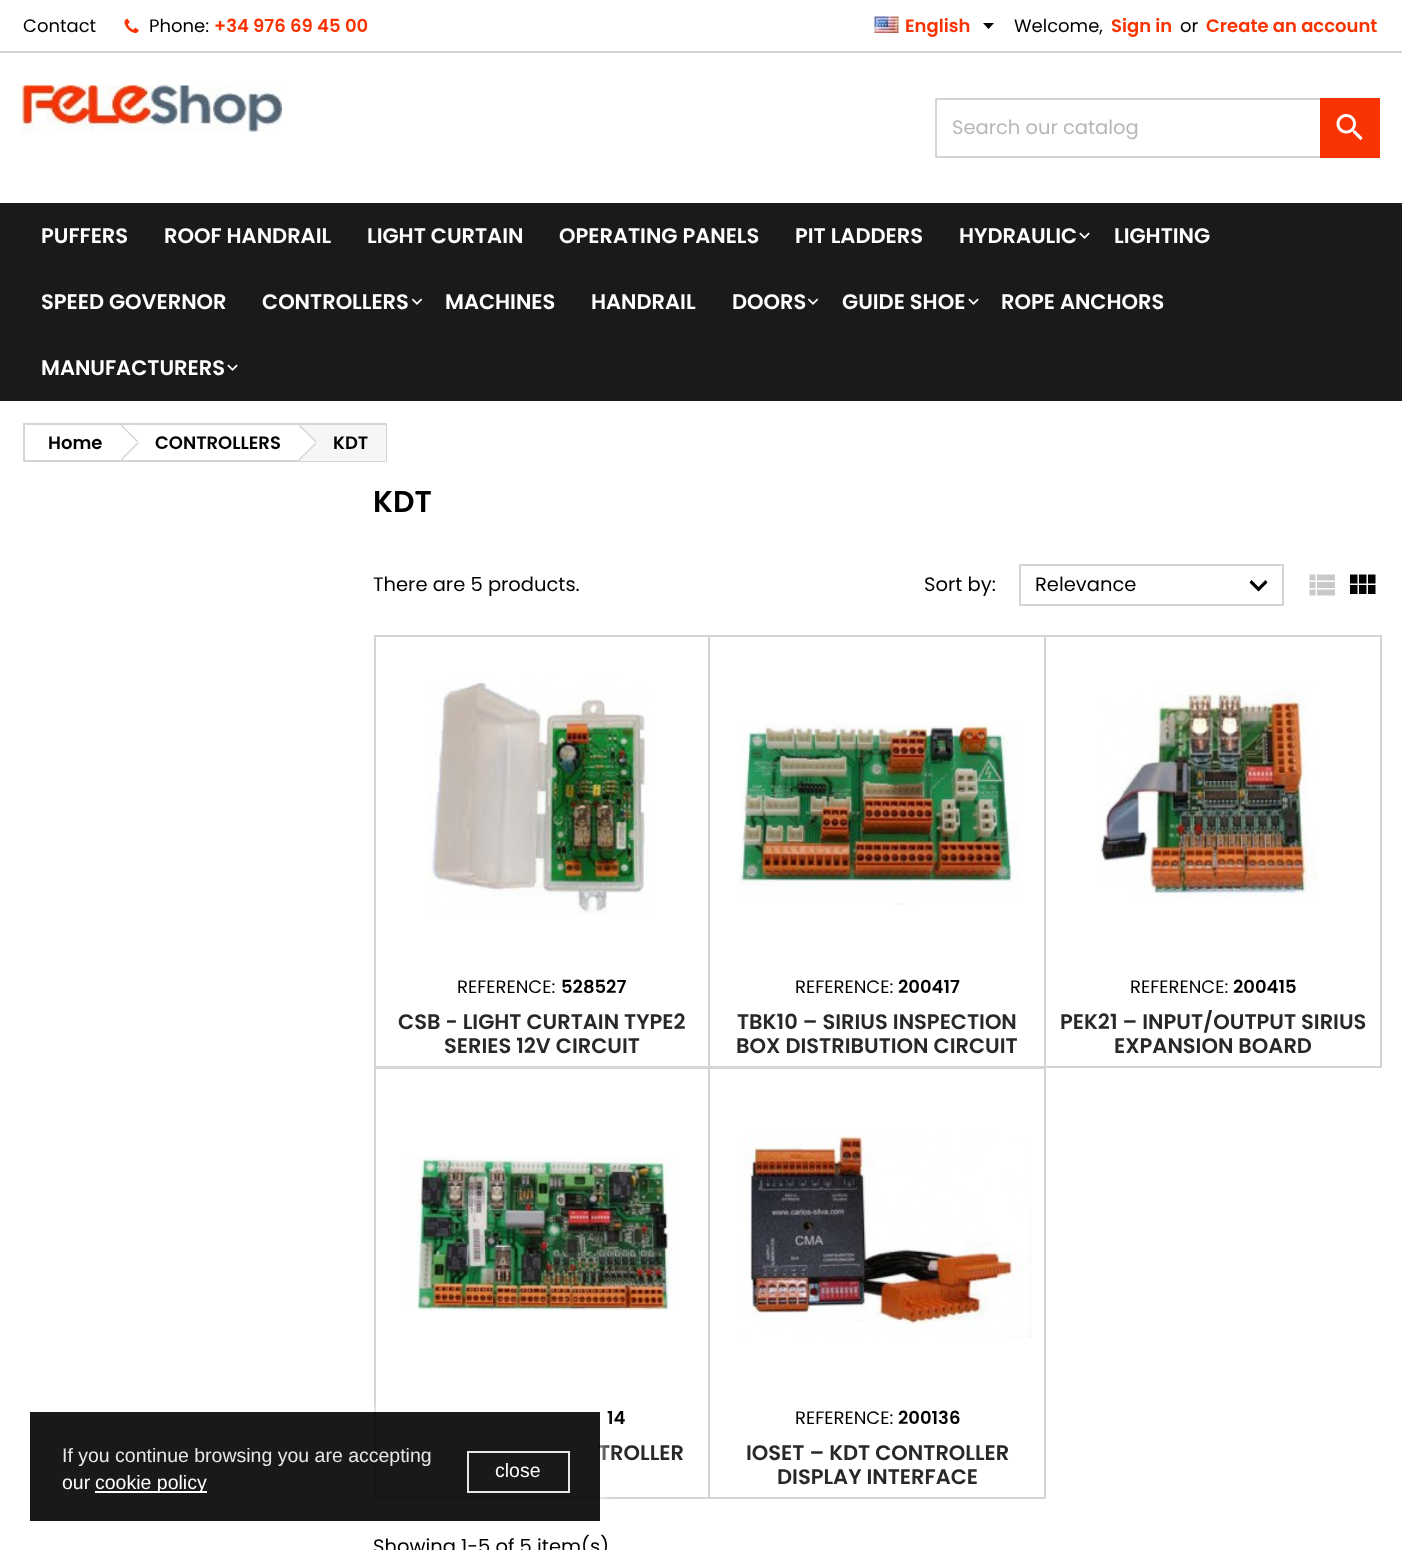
async function draw(canvas) {
  canvas.width = 1402;
  canvas.height = 1550;
  const ctx = canvas.getContext('2d');
  ctx.miterLimit = 4;
  ctx.fontKerning = 'normal';
  function label(s, x, y, font, color) {
    ctx.font = font;
    ctx.fillStyle = color;
    ctx.fillText(s, x, y);
  }
  function rect(x, y, w, h, color) {
    ctx.fillStyle = color;
    ctx.fillRect(x, y, w, h);
  }
  async function image(src, x, y, w, h) {
    const img = new Image();
    img.src = src;
    await img.decode();
    ctx.drawImage(img, x, y, w, h);
  }
  let path;

  rect(0, 0, 1402, 1550, '#fff');
  rect(0, 51, 1402, 2, '#d6d4d4');
  label('Contact', 23, 32, '18px Poppins', '#000');
  await image('assets/img1.png', 124, 18, 15, 15);
  label('Phone:', 149, 32, '18px Poppins', '#000');
  label('+34 976 69 45 00', 214, 32, '600 18px Poppins', '#f93302');
  await image('assets/img2.png', 874, 16, 25, 17);
  label('English', 905, 32, '600 18px Poppins', '#f93302');
  ctx.fillStyle = '#000';
  path = new Path2D('M983 23H994L988.5 29Z');
  ctx.fill(path);
  label('Welcome,', 1014, 32, '18px Poppins', '#000');
  label('Sign in', 1111, 32, '600 18px Poppins', '#f93302');
  label('or', 1180, 32, '18px Poppins', '#000');
  label('Create an account', 1206, 32, '600 18px Poppins', '#f93302');
  await image('assets/img3.png', 22, 85, 260, 47);
  ctx.strokeStyle = '#d6d4d4';
  ctx.lineWidth = 2;
  ctx.strokeRect(936, 99, 443, 58);
  label('Search our catalog', 952, 134, '19.5px Poppins', '#b7b7b7');
  rect(1320, 98, 60, 60, '#f93302');
  await image('assets/img4.png', 1336, 114, 27, 27);
  rect(0, 203, 1402, 198, '#1b1a1b');
  label('PUFFERS', 41, 243, '600 21px Poppins', '#fff');
  label('ROOF HANDRAIL', 164, 243, '600 21px Poppins', '#fff');
  label('LIGHT CURTAIN', 367, 243, '600 21px Poppins', '#fff');
  label('OPERATING PANELS', 559, 243, '600 21px Poppins', '#fff');
  label('PIT LADDERS', 795, 243, '600 21px Poppins', '#fff');
  label('HYDRAULIC', 959, 243, '600 21px Poppins', '#fff');
  await image('assets/img5.png', 1079, 232, 11, 7);
  label('LIGHTING', 1114, 243, '600 21px Poppins', '#fff');
  label('SPEED GOVERNOR', 41, 309, '600 21px Poppins', '#fff');
  label('CONTROLLERS', 262, 309, '600 21px Poppins', '#fff');
  await image('assets/img6.png', 411, 298, 12, 7);
  label('MACHINES', 445, 309, '600 21px Poppins', '#fff');
  label('HANDRAIL', 591, 309, '600 21px Poppins', '#fff');
  label('DOORS', 732, 309, '600 21px Poppins', '#fff');
  await image('assets/img6.png', 807, 298, 12, 7);
  label('GUIDE SHOE', 842, 309, '600 21px Poppins', '#fff');
  await image('assets/img5.png', 968, 298, 11, 7);
  label('ROPE ANCHORS', 1001, 309, '600 21px Poppins', '#fff');
  label('MANUFACTURERS', 41, 375, '600 21px Poppins', '#fff');
  await image('assets/img5.png', 227, 364, 11, 7);
  ctx.strokeRect(24, 424, 362, 37);
  label('Home', 48, 449, '600 18px Poppins', '#000');
  ctx.fillStyle = '#fff';
  path = new Path2D('M122.5 425.5L137.5 440.5C138.5 441.5 138.5 443.5 137.5 444.5L122.5 459.5C121.5 460.5 119.5 460.5 118.5 459.5L103.5 444.5C102 443.5 102 441.5 103.5 440.5L118.5 425.5C119.5 424.5 121.5 424.5 122.5 425.5Z');
  ctx.fill(path);
  ctx.fillStyle = '#d6d4d4';
  path = new Path2D('M121.5 424.5L138.5 441.5L137.5 442.5L120.5 425.5Z');
  ctx.fill(path);
  path = new Path2D('M137.5 442.5L138.5 443.5L121.5 460.5L120.5 459.5Z');
  ctx.fill(path);
  label('CONTROLLERS', 155, 449, '600 18px Poppins', '#000');
  rect(300, 425, 86, 36, '#f6f6f6');
  ctx.fillStyle = '#fff';
  path = new Path2D('M300.5 425.5L315.5 440.5C316.5 441.5 316.5 443.5 315.5 444.5L300.5 459.5C299.5 460.5 297.5 460.5 296.5 459.5L281.5 444.5C280.5 443.5 280.5 441.5 281.5 440.5L296.5 425.5C297.5 424.5 299.5 424.5 300.5 425.5Z');
  ctx.fill(path);
  ctx.fillStyle = '#d6d4d4';
  path = new Path2D('M299.5 424.5L316.5 441.5L315.5 442.5L298.5 425.5Z');
  ctx.fill(path);
  path = new Path2D('M315.5 442.5L316.5 443.5L299.5 460.5L298.5 459.5Z');
  ctx.fill(path);
  label('KDT', 333, 449, '600 18px Poppins', '#000');
  label('KDT', 373, 512, '600 30px Poppins', '#000');
  label('There are 5 products.', 373, 591, '19.5px Poppins', '#000');
  label('Sort by:', 924, 591, '19.5px Poppins', '#000');
  ctx.strokeRect(1020, 565, 263, 40);
  label('Relevance', 1035, 591, '19.5px Poppins', '#000');
  path = new Path2D('M1251.5 580L1258.5 587L1265.5 580L1267.5 582.5L1258.5 591.5L1249.5 582.5Z');
  ctx.fill(path);
  await image('assets/img7.png', 1309, 574, 26, 22);
  await image('assets/img8.png', 1349, 574, 27, 20);
  ctx.strokeRect(375, 636, 334, 431);
  await image('assets/img9.png', 428, 679, 221, 237);
  label('REFERENCE:', 457, 993, '18px Poppins', '#000');
  label('528527', 561, 993, '600 18px Poppins', '#000');
  label('CSB - LIGHT CURTAIN TYPE2', 398, 1029, '600 21px Poppins', '#282828');
  label('SERIES 12V CIRCUIT', 444, 1053, '600 21px Poppins', '#282828');
  ctx.strokeRect(709, 636, 336, 431);
  await image('assets/img10.png', 739, 723, 280, 182);
  label('REFERENCE:', 795, 993, '18px Poppins', '#000');
  label('200417', 898, 993, '600 18px Poppins', '#000');
  label('TBK10 – SIRIUS INSPECTION', 737, 1029, '600 21px Poppins', '#282828');
  label('BOX DISTRIBUTION CIRCUIT', 736, 1053, '600 21px Poppins', '#282828');
  ctx.strokeRect(1045, 636, 336, 431);
  await image('assets/img11.png', 1096, 686, 223, 212);
  label('REFERENCE:', 1130, 993, '18px Poppins', '#000');
  label('200415', 1233, 993, '600 18px Poppins', '#000');
  ctx.save();
  ctx.beginPath();
  ctx.rect(1058, 1010, 310, 48);
  ctx.clip();
  label('PEK21 – INPUT/OUTPUT SIRIUS', 1060, 1029, '600 21px Poppins', '#282828');
  ctx.restore();
  label('EXPANSION BOARD', 1114, 1053, '600 21px Poppins', '#282828');
  ctx.strokeRect(375, 1068, 334, 430);
  await image('assets/img12.png', 406, 1156, 268, 155);
  label('14', 607, 1424, '600 18px Poppins', '#000');
  label('TROLLER', 598, 1460, '600 21px Poppins', '#282828');
  ctx.strokeRect(709, 1068, 336, 430);
  await image('assets/img13.png', 741, 1134, 291, 204);
  label('REFERENCE:', 795, 1424, '18px Poppins', '#000');
  label('200136', 898, 1424, '600 18px Poppins', '#000');
  label('IOSET – KDT CONTROLLER', 746, 1460, '600 21px Poppins', '#282828');
  label('DISPLAY INTERFACE', 777, 1484, '600 21px Poppins', '#282828');
  label('Showing 1-5 of 5 item(s)', 373, 1553, '19.5px Poppins', '#000');
  ctx.save();
  path = new Path2D('M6 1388H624V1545H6ZM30 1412H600V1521H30Z');
  ctx.clip(path, 'evenodd');
  ctx.fillStyle = '#ffffffe6';
  ctx.filter = 'blur(7.5px)';
  ctx.beginPath();
  ctx.rect(30, 1412, 570, 109);
  ctx.fill();
  ctx.filter = 'none';
  ctx.restore();
  rect(30, 1412, 570, 109, '#000000e6');
  label('If you continue browsing you are accepting', 62, 1462, '19.5px Liberation Sans', '#e8e8e8');
  label('our', 62, 1489, '19.5px Liberation Sans', '#fff');
  rect(95, 1491, 112, 2, '#fff');
  label('cookie policy', 95, 1489, '19.5px Liberation Sans', '#fff');
  ctx.strokeStyle = '#ffffffe6';
  ctx.strokeRect(468, 1452, 101, 40);
  label('close', 495, 1477, '19.5px Liberation Sans', '#fff');
}

draw(document.querySelector('canvas'));
